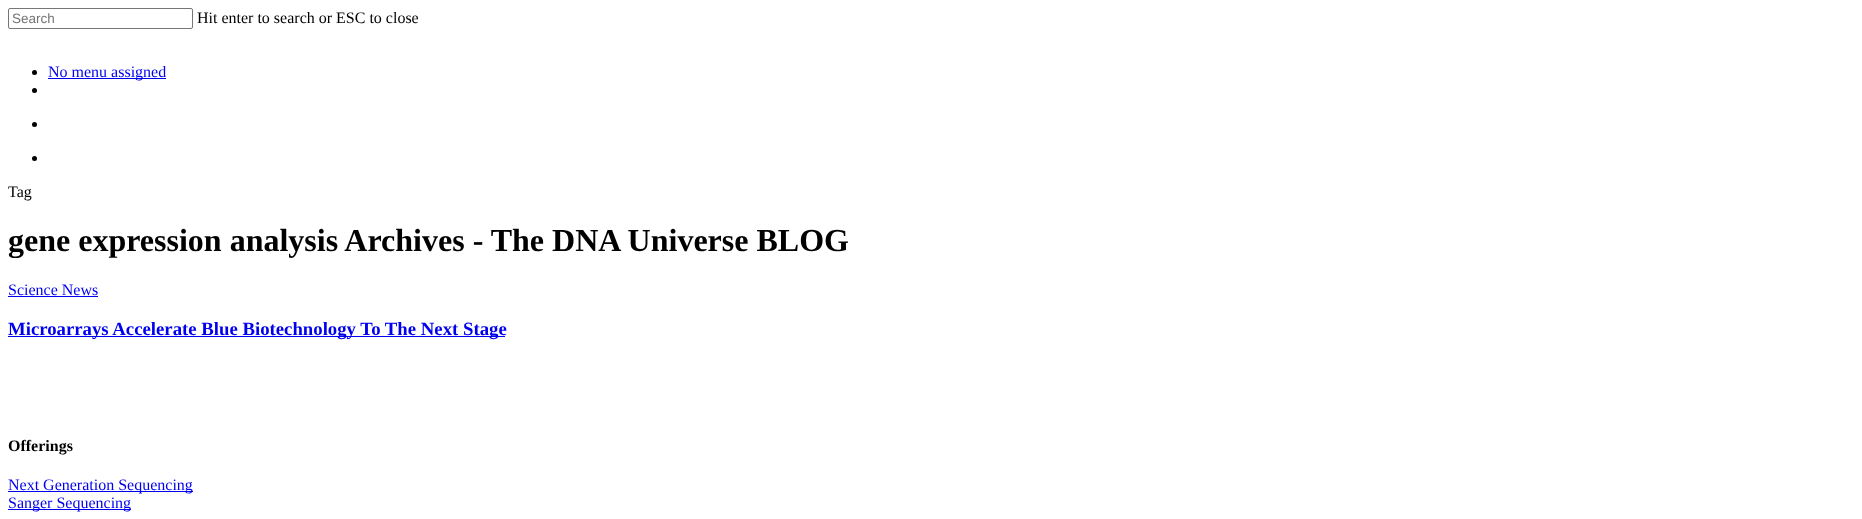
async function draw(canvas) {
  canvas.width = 1862;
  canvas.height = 519;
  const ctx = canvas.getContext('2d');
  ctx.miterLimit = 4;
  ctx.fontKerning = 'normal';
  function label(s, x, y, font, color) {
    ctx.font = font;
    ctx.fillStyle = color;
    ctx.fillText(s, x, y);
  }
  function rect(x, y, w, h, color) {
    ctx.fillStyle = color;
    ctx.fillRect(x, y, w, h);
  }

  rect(0, 0, 1862, 519, '#fff');
  ctx.beginPath();
  ctx.roundRect(8.5, 8.5, 184, 20, 1.5);
  ctx.strokeStyle = '#767676';
  ctx.stroke();
  label('Search', 12, 23, '13.5px Liberation Sans', '#757575');
  label('Hit enter to search or ESC to close', 197, 23, '16px Liberation Serif', '#000');
  ctx.beginPath();
  ctx.arc(34.5, 72.5, 2.5, 0, 2 * Math.PI);
  ctx.fill();
  rect(48, 78, 118, 1, '#00e');
  label('No menu assigned', 48, 77, '16px Liberation Serif', '#00e');
  ctx.fillStyle = '#000';
  ctx.beginPath();
  ctx.arc(34.5, 90.5, 2.5, 0, 2 * Math.PI);
  ctx.fill();
  ctx.beginPath();
  ctx.arc(34.5, 124.5, 2.5, 0, 2 * Math.PI);
  ctx.fill();
  ctx.beginPath();
  ctx.arc(34.5, 158.5, 2.5, 0, 2 * Math.PI);
  ctx.fill();
  label('Tag', 8, 197, '16px Liberation Serif', '#000');
  label('gene expression analysis Archives - The DNA Universe BLOG', 8, 251, 'bold 32px Liberation Serif', '#000');
  label('Science News', 8, 295, '16px Liberation Serif', '#00e');
  rect(8, 296, 90, 1, '#00e');
  rect(8, 336, 497, 1, '#00e');
  label('Microarrays Accelerate Blue Biotechnology To The Next Stage', 8, 335, 'bold 18.75px Liberation Serif', '#00e');
  label('Offerings', 8, 451, 'bold 16px Liberation Serif', '#000');
  rect(8, 491, 185, 1, '#00e');
  label('Next Generation Sequencing', 8, 490, '16px Liberation Serif', '#00e');
  rect(8, 509, 123, 1, '#00e');
  label('Sanger Sequencing', 8, 508, '16px Liberation Serif', '#00e');
}

draw(document.querySelector('canvas'));
